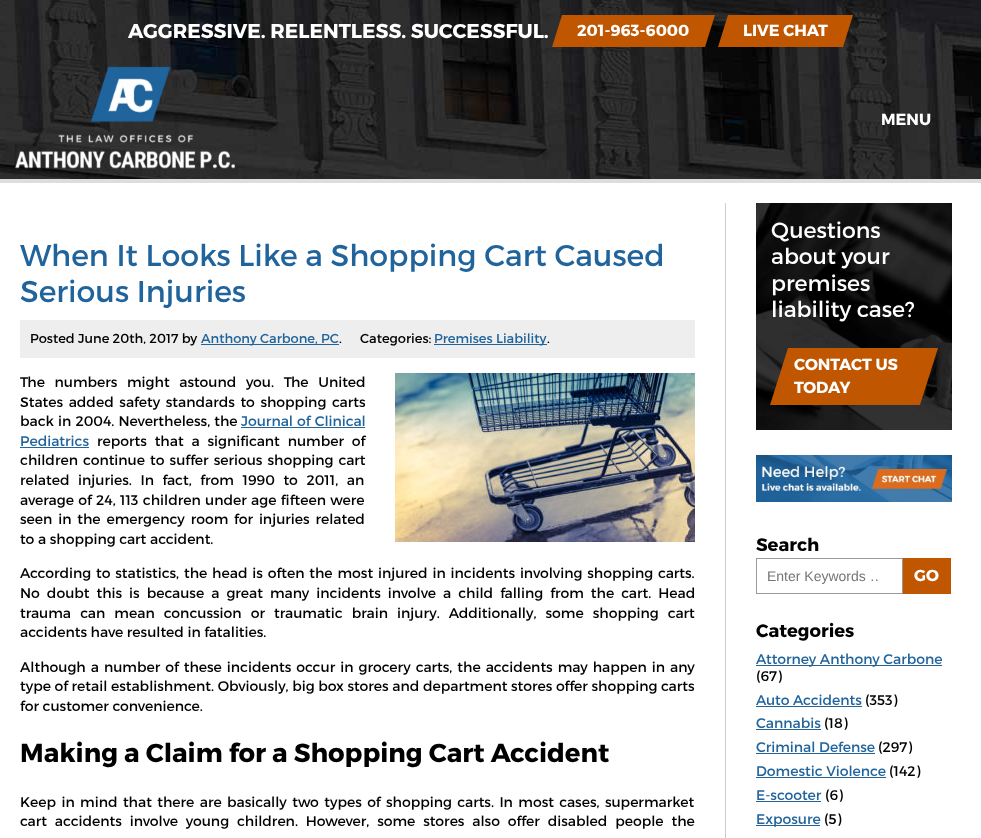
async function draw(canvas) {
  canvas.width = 981;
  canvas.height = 838;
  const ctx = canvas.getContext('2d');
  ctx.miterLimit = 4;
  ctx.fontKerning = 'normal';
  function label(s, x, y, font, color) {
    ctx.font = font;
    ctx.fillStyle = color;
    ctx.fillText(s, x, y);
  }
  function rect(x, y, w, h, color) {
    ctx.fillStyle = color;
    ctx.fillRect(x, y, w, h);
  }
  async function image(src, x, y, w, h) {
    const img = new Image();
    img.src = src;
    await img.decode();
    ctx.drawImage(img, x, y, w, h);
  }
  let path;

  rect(0, 0, 981, 838, '#fff');
  await image('assets/img1.png', 0, 0, 981, 179);
  label('AGGRESSIVE. RELENTLESS. SUCCESSFUL.', 128, 38, 'bold 20px Montserrat', '#fff');
  ctx.fillStyle = '#c05600';
  path = new Path2D('M562 15H715L705 47H552Z');
  ctx.fill(path);
  label('201-963-6000', 577, 36, 'bold 16px Montserrat', '#fff');
  ctx.fillStyle = '#c05600';
  path = new Path2D('M728 15H853L843 47H718Z');
  ctx.fill(path);
  label('LIVE CHAT', 743, 36, 'bold 16px Montserrat', '#fff');
  await image('assets/img2.png', 14, 66, 221, 103);
  label('MENU', 881, 125, 'bold 16px Montserrat', '#fff');
  rect(0, 179, 981, 4, '#ddd');
  rect(725, 203, 1, 635, '#ccc');
  label('When It Looks Like a Shopping Cart Caused', 20, 266, '30px Montserrat', '#21649c');
  label('Serious Injuries', 20, 302, '30px Montserrat', '#21649c');
  rect(20, 320, 675, 38, '#eee');
  label('Posted June 20th, 2017 by', 30, 343, '13px Montserrat', '#000');
  rect(201, 344, 138, 1, '#21649c');
  label('Anthony Carbone, PC', 201, 343, '13px Montserrat', '#21649c');
  label('.', 339, 343, '13px Montserrat', '#000');
  label('Categories:', 360, 343, '13px Montserrat', '#000');
  rect(434, 344, 113, 1, '#21649c');
  label('Premises Liability', 434, 343, '13px Montserrat', '#21649c');
  label('.', 547, 343, '13px Montserrat', '#000');
  ctx.wordSpacing = '6px';
  label('The numbers might astound you. The United', 20, 387, '14px Montserrat', '#000');
  await image('assets/img3.png', 395, 373, 300, 169);
  ctx.wordSpacing = '2px';
  label('States added safety standards to shopping carts', 20, 407, '14px Montserrat', '#000');
  ctx.wordSpacing = '0.5px';
  label('back in 2004. Nevertheless, the', 20, 426, '14px Montserrat', '#000');
  label('Journal of Clinical', 241, 426, '14px Montserrat', '#21649c');
  rect(241, 427, 124, 1, '#21649c');
  ctx.wordSpacing = '0px';
  label('Pediatrics', 20, 446, '14px Montserrat', '#21649c');
  rect(20, 447, 69, 1, '#21649c');
  ctx.wordSpacing = '4.25px';
  label('reports that a significant number of', 97, 446, '14px Montserrat', '#000');
  ctx.wordSpacing = '1.5px';
  label('children continue to suffer serious shopping cart', 20, 465, '14px Montserrat', '#000');
  ctx.wordSpacing = '5px';
  label('related injuries. In fact, from 1990 to 2011, an', 20, 485, '14px Montserrat', '#000');
  ctx.wordSpacing = '0.75px';
  label('average of 24, 113 children under age fifteen were', 20, 505, '14px Montserrat', '#000');
  ctx.wordSpacing = '2.25px';
  label('seen in the emergency room for injuries related', 20, 524, '14px Montserrat', '#000');
  ctx.wordSpacing = '0px';
  label('to a shopping cart accident.', 20, 544, '14px Montserrat', '#000');
  ctx.wordSpacing = '1.25px';
  label('According to statistics, the head is often the most injured in incidents involving shopping carts.', 20, 578, '14px Montserrat', '#000');
  ctx.wordSpacing = '3.4px';
  label('No doubt this is because a great many incidents involve a child falling from the cart. Head', 20, 598, '14px Montserrat', '#000');
  ctx.wordSpacing = '5.5px';
  label('trauma can mean concussion or traumatic brain injury. Additionally, some shopping cart', 20, 618, '14px Montserrat', '#000');
  ctx.wordSpacing = '0px';
  label('accidents have resulted in fatalities.', 20, 637, '14px Montserrat', '#000');
  ctx.wordSpacing = '1.4px';
  label('Although a number of these incidents occur in grocery carts, the accidents may happen in any', 20, 672, '14px Montserrat', '#000');
  ctx.wordSpacing = '0px';
  label('type of retail establishment. Obviously, big box stores and department stores offer shopping carts', 20, 691, '14px Montserrat', '#000');
  label('for customer convenience.', 20, 711, '14px Montserrat', '#000');
  label('Making a Claim for a Shopping Cart Accident', 20, 762, 'bold 26px Montserrat', '#000');
  ctx.wordSpacing = '1.8px';
  label('Keep in mind that there are basically two types of shopping carts. In most cases, supermarket', 20, 807, '14px Montserrat', '#000');
  ctx.wordSpacing = '4.25px';
  label('cart accidents involve young children. However, some stores also offer disabled people the', 20, 826, '14px Montserrat', '#000');
  await image('assets/img4.png', 756, 203, 196, 227);
  ctx.wordSpacing = '0px';
  label('Questions', 771, 238, '22px Montserrat', '#fff');
  label('about your', 771, 264, '22px Montserrat', '#fff');
  label('premises', 771, 291, '22px Montserrat', '#fff');
  label('liability case?', 771, 317, '22px Montserrat', '#fff');
  ctx.fillStyle = '#c05600';
  path = new Path2D('M788 348H938L920 405H770Z');
  ctx.fill(path);
  label('CONTACT US', 794, 370, 'bold 16px Montserrat', '#fff');
  label('TODAY', 794, 393, 'bold 16px Montserrat', '#fff');
  await image('assets/img5.png', 756, 455, 196, 47);
  label('Search', 756, 551, 'bold 18px Montserrat', '#000');
  ctx.strokeStyle = '#999';
  ctx.strokeRect(756.5, 558.5, 146, 35);
  ctx.save();
  ctx.beginPath();
  ctx.rect(767, 568, 111, 16);
  ctx.clip();
  label('Enter Keywords …', 767, 581, '14px Liberation Sans', '#757575');
  ctx.restore();
  rect(903, 558, 48, 36, '#c05600');
  label('GO', 914, 581, 'bold 16px Montserrat', '#fff');
  label('Categories', 756, 637, 'bold 18px Montserrat', '#000');
  rect(756, 665, 186, 1, '#21649c');
  label('Attorney Anthony Carbone', 756, 664, '14px Montserrat', '#21649c');
  label('(67)', 756, 681, '14px Montserrat', '#000');
  label('Auto Accidents', 756, 705, '14px Montserrat', '#21649c');
  rect(756, 706, 106, 1, '#21649c');
  label('(353)', 865, 705, '14px Montserrat', '#000');
  label('Cannabis', 756, 728, '14px Montserrat', '#21649c');
  rect(756, 729, 65, 1, '#21649c');
  label('(18)', 824, 728, '14px Montserrat', '#000');
  label('Criminal Defense', 756, 752, '14px Montserrat', '#21649c');
  rect(756, 753, 119, 1, '#21649c');
  label('(297)', 878, 752, '14px Montserrat', '#000');
  label('Domestic Violence', 756, 776, '14px Montserrat', '#21649c');
  rect(756, 777, 130, 1, '#21649c');
  label('(142)', 889, 776, '14px Montserrat', '#000');
  label('E-scooter', 756, 800, '14px Montserrat', '#21649c');
  rect(756, 801, 65, 1, '#21649c');
  label('(6)', 825, 800, '14px Montserrat', '#000');
  rect(756, 825, 64, 1, '#21649c');
  label('Exposure', 756, 824, '14px Montserrat', '#21649c');
  label('(5)', 824, 824, '14px Montserrat', '#000');
}

draw(document.querySelector('canvas'));
